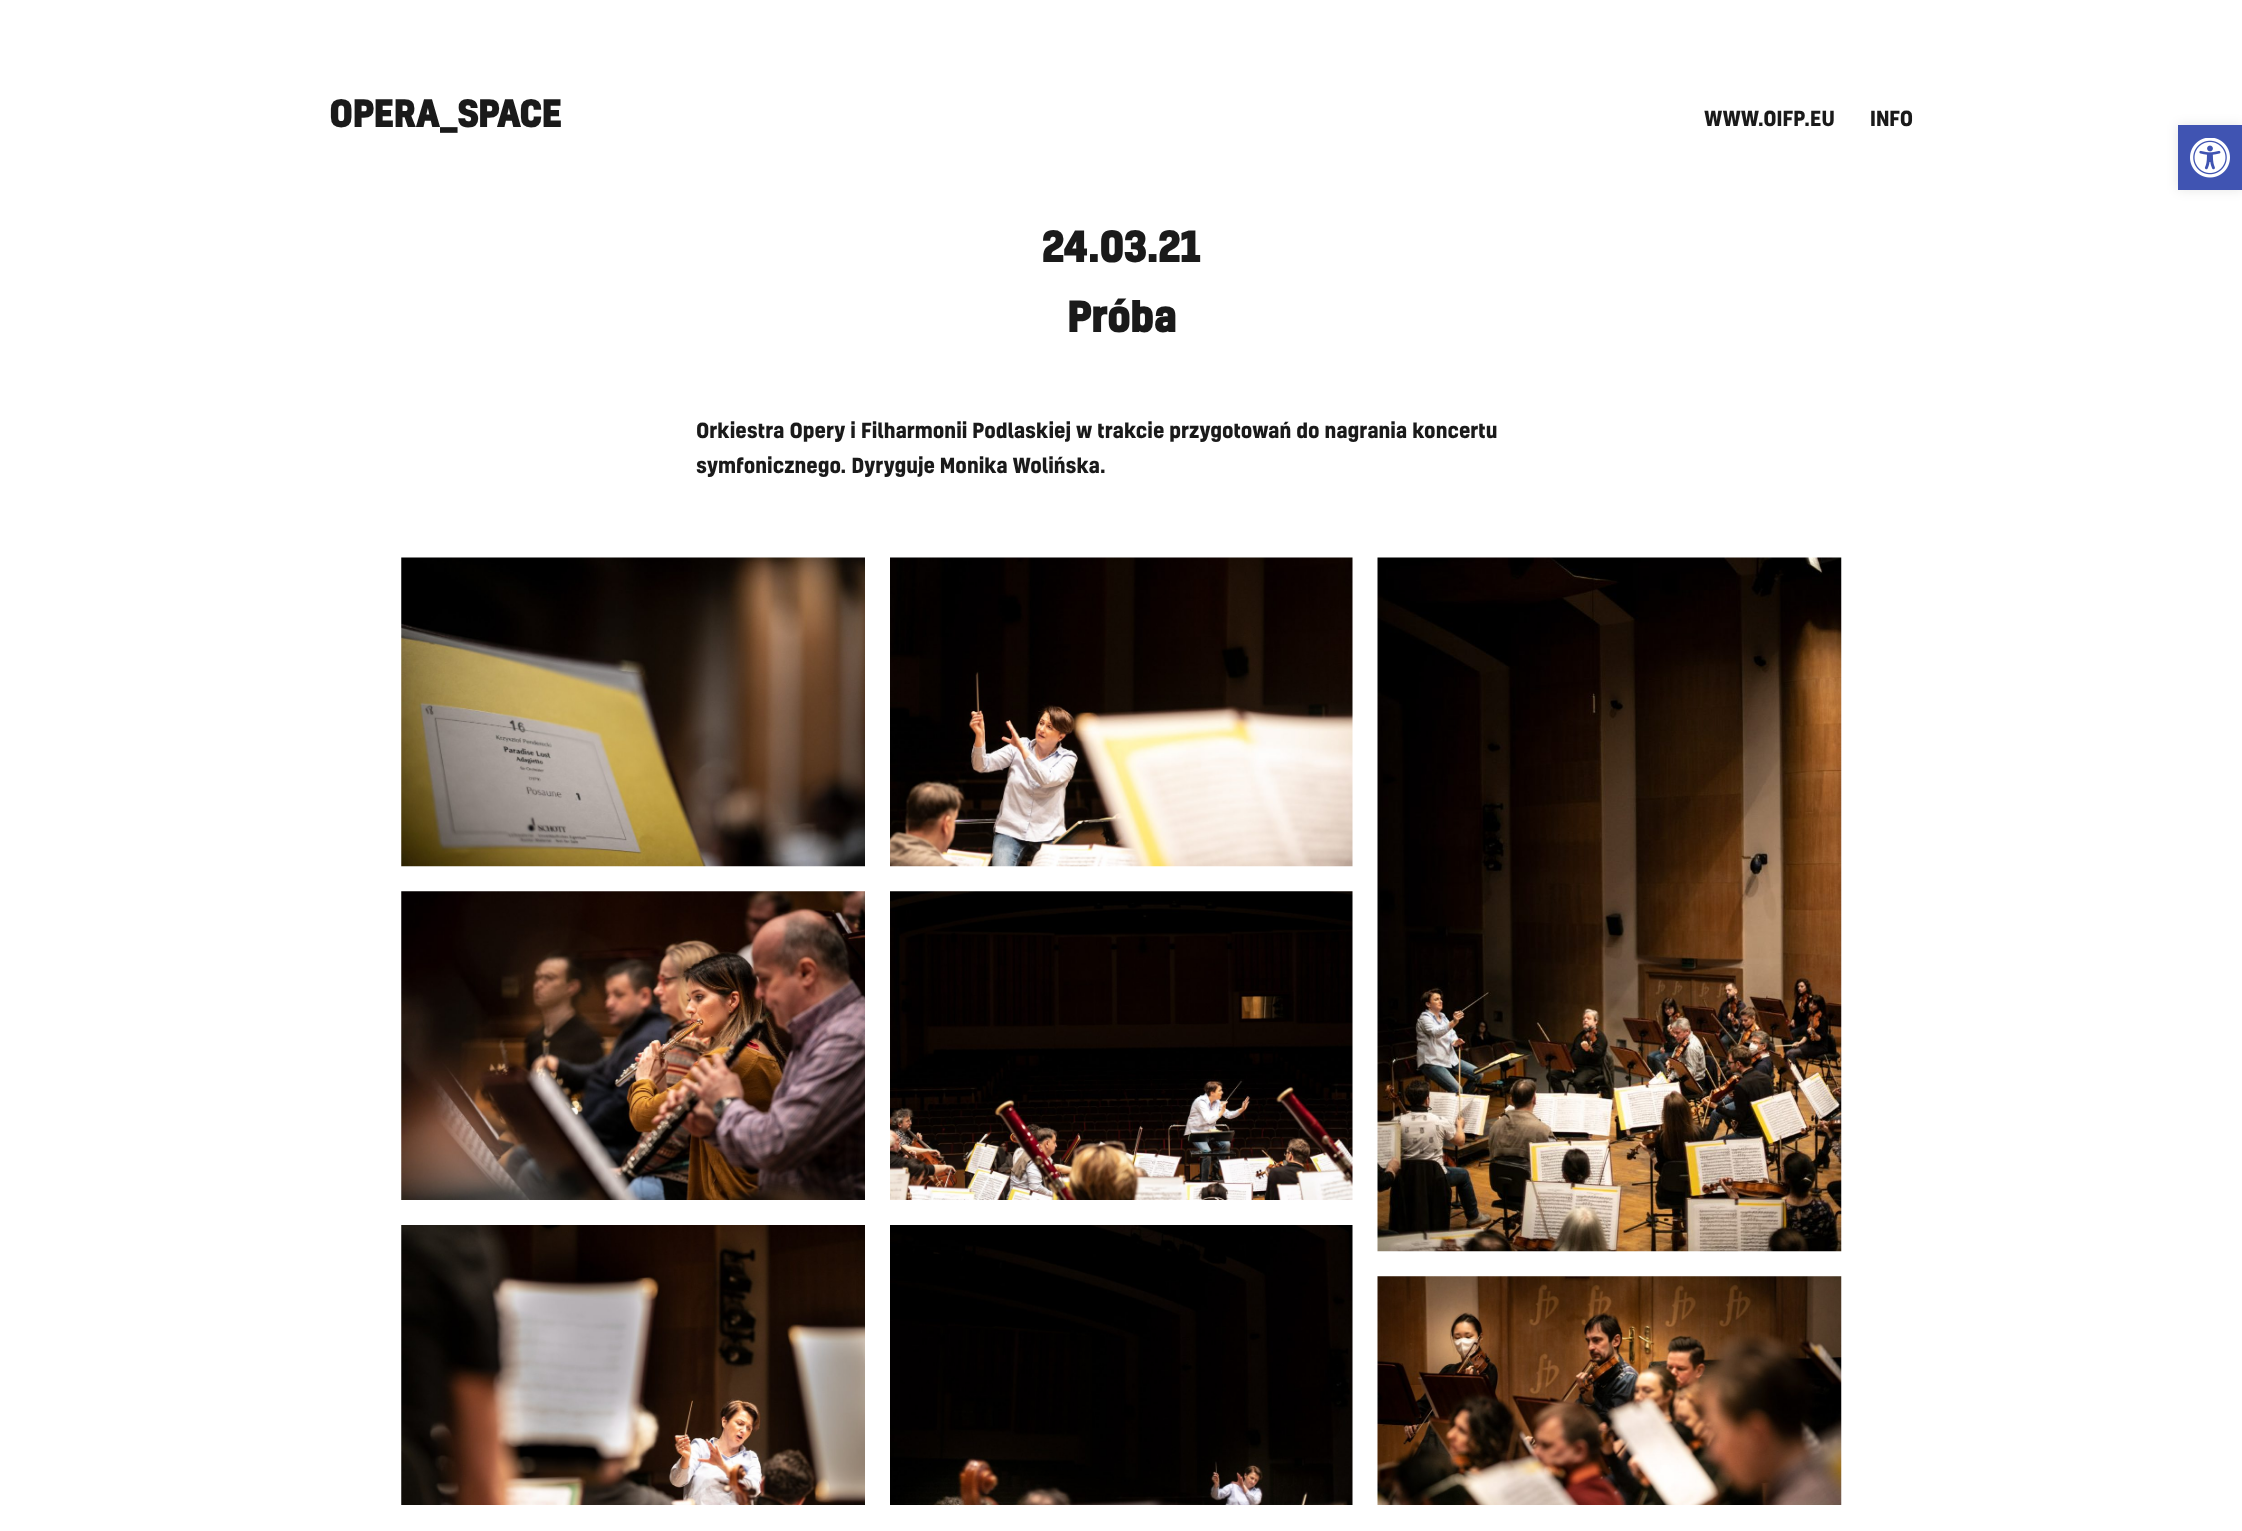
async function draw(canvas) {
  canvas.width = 2242;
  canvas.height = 1531;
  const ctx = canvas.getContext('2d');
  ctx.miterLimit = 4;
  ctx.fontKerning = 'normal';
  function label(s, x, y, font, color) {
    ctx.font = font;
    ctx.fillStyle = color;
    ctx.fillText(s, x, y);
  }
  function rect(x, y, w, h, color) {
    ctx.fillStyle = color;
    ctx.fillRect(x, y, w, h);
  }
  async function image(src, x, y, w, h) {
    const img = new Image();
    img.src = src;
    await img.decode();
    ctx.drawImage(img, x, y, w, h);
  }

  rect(0, 0, 2242, 1531, '#fff');
  label('OPERA_SPACE', 329, 127, 'bold 35px "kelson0"', '#1a1a1a');
  label('WWW.OIFP.EU', 1704, 126, '20px "kelson0"', '#1a1a1a');
  label('INFO', 1870, 126, '20px "kelson0"', '#1a1a1a');
  label('24.03.21', 1042, 262, 'bold 40px "kelson0"', '#1a1a1a');
  label('Próba', 1067, 332, 'bold 40px "kelson0"', '#1a1a1a');
  label('Orkiestra Opery i Filharmonii Podlaskiej w trakcie przygotowań do nagrania koncertu', 696, 438, '20px "kelson0"', '#1a1a1a');
  label('symfonicznego. Dyryguje Monika Wolińska.', 696, 473, '20px "kelson0"', '#1a1a1a');
  await image('assets/img1.png', 401, 557, 464, 310);
  await image('assets/img2.png', 890, 557, 463, 310);
  await image('assets/img3.png', 1377, 557, 465, 695);
  await image('assets/img4.png', 401, 891, 464, 309);
  await image('assets/img5.png', 890, 891, 463, 309);
  await image('assets/img6.png', 401, 1225, 464, 280);
  await image('assets/img7.png', 890, 1225, 463, 280);
  await image('assets/img8.png', 1377, 1276, 465, 229);
  ctx.fillStyle = '#0000001a';
  ctx.filter = 'blur(6px)';
  ctx.beginPath();
  ctx.rect(2178, 125, 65, 65);
  ctx.fill();
  ctx.filter = 'none';
  rect(2178, 125, 64, 65, '#4054b2');
  await image('assets/img9.png', 2190, 138, 40, 40);
}

draw(document.querySelector('canvas'));
